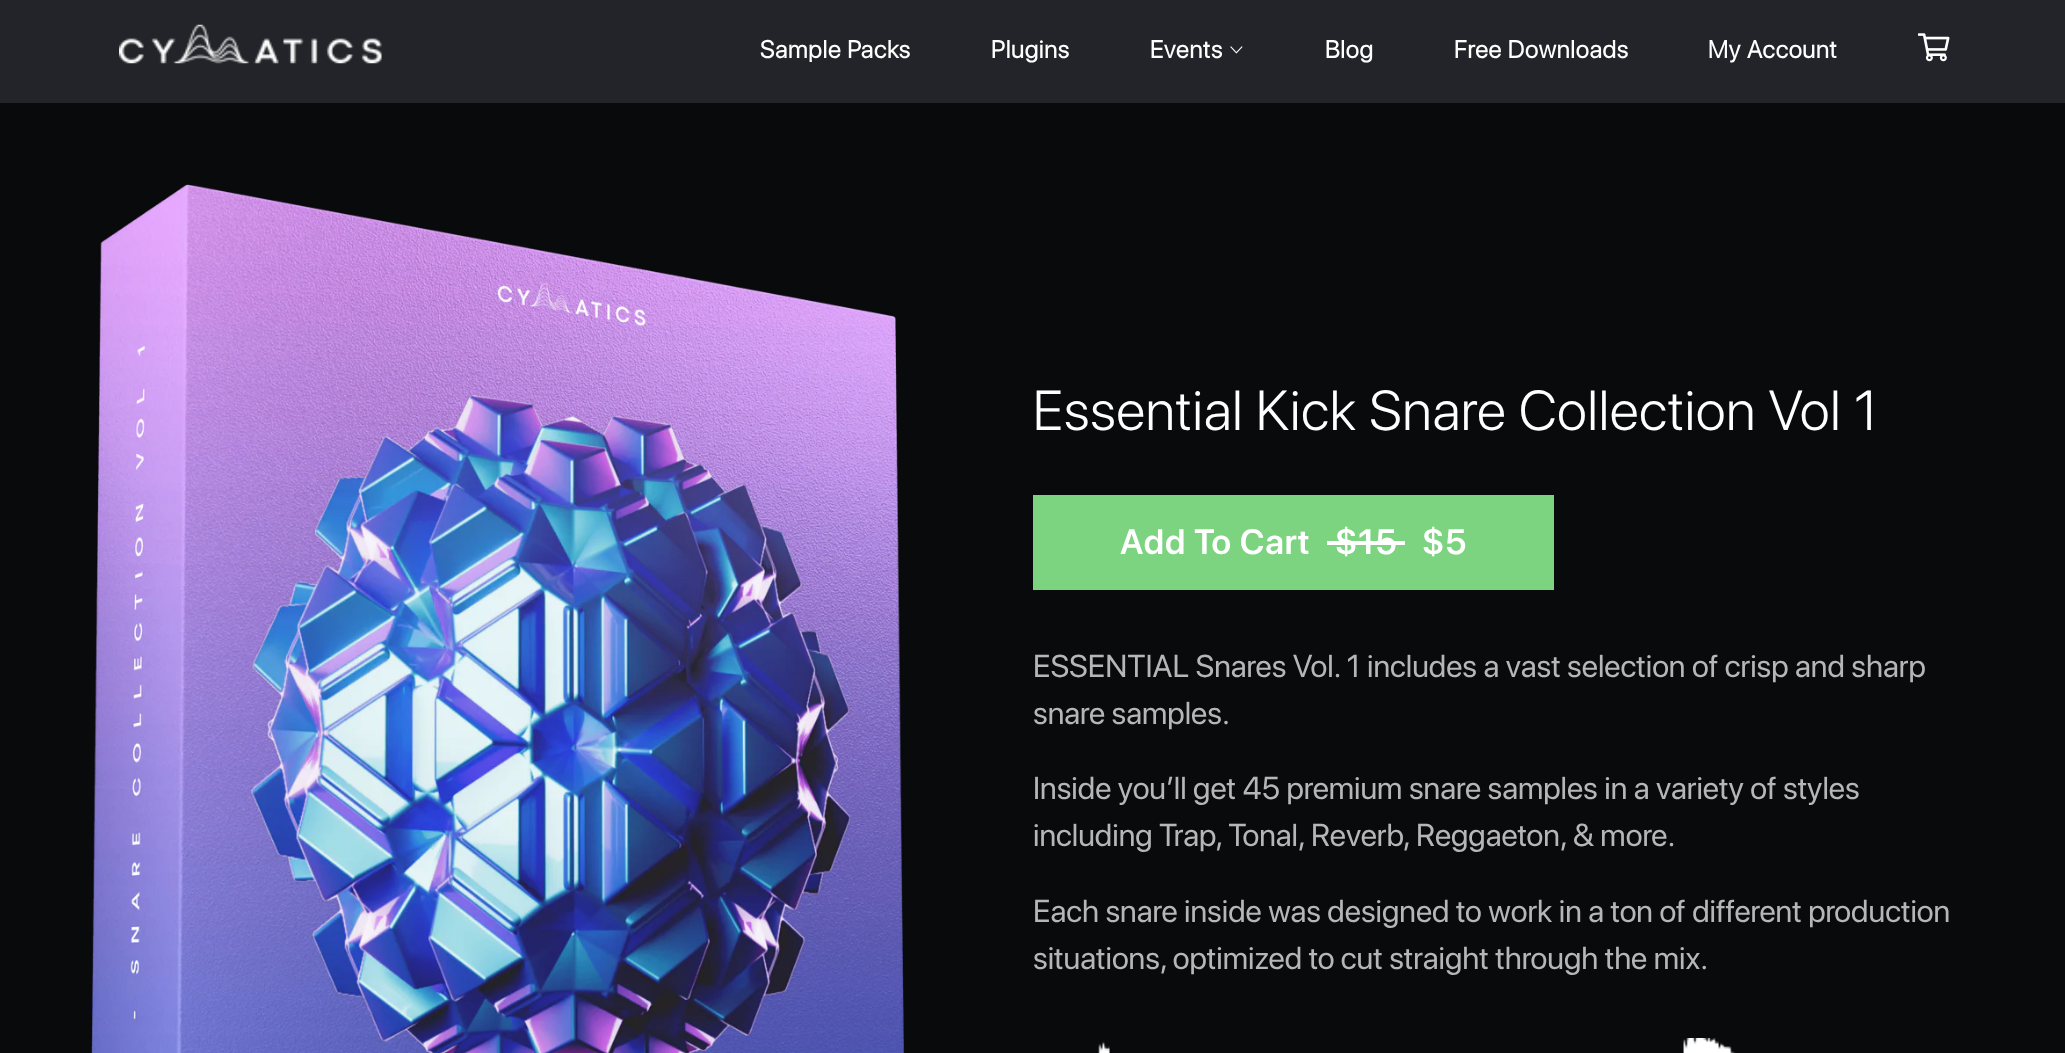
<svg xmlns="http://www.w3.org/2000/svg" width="2065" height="1053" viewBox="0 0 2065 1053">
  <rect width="100%" height="100%" fill="rgb(9,10,12)"/>
  <rect x="0" y="0" width="2065" height="103" fill="rgb(35,36,41)"/>
  <image x="119" y="24" width="263" height="40" href="pic1.png"/>
  <g font-family="SF Pro Display" font-size="24.5" font-weight="bold" letter-spacing="0.9" fill="rgb(255,255,255)">
    <text x="760" y="58">Sample Packs</text>
    <text x="991" y="58">Plugins</text>
    <text x="1150" y="58">Events</text>
  </g>
  <image x="1230" y="46" width="13" height="8" href="pic2.png"/>
  <g font-family="SF Pro Display" font-size="24.5" font-weight="bold" letter-spacing="0.9" fill="rgb(255,255,255)">
    <text x="1325" y="58">Blog</text>
    <text x="1454" y="58">Free Downloads</text>
    <text x="1708" y="58">My Account</text>
  </g>
  <image x="1918" y="33" width="32" height="29" href="pic3.png"/>
  <image x="91" y="184" width="814" height="869" href="pic4.png"/>
  <text x="1033" y="430" font-family="SF Pro Display" font-size="56" font-weight="300" letter-spacing="0.9" fill="rgb(255,255,255)">Essential Kick Snare Collection Vol 1</text>
  <rect x="1033" y="495" width="521" height="95" fill="rgb(124,211,128)"/>
  <g font-family="SF Pro Display" font-size="35" font-weight="600" letter-spacing="0.9" fill="rgb(255,255,255)">
    <text x="1120" y="554">Add To Cart</text>
    <text x="1335" y="554">$15</text>
  </g>
  <rect x="1327" y="541" width="78" height="4" fill="rgb(255,255,255)"/>
  <text x="1422" y="554" font-family="SF Pro Display" font-size="35" font-weight="600" letter-spacing="0.9" fill="rgb(255,255,255)">$5</text>
  <g font-family="SF Pro Display" font-size="31.5" fill="rgb(181,182,182)">
    <text>
      <tspan x="1033" y="677">ESSENTIAL Snares Vol. 1 includes a vast selection of crisp and sharp</tspan>
      <tspan x="1033" y="724">snare samples.</tspan>
    </text>
    <text>
      <tspan x="1033" y="799">Inside you’ll get 45 premium snare samples in a variety of styles</tspan>
      <tspan x="1033" y="846">including Trap, Tonal, Reverb, Reggaeton, &amp; more.</tspan>
    </text>
    <text>
      <tspan x="1033" y="922">Each snare inside was designed to work in a ton of different production</tspan>
      <tspan x="1033" y="969">situations, optimized to cut straight through the mix.</tspan>
    </text>
  </g>
  <image x="1098" y="1041" width="12" height="12" href="pic5.png"/>
  <image x="1683" y="1038" width="52" height="15" href="pic6.png"/>
</svg>
